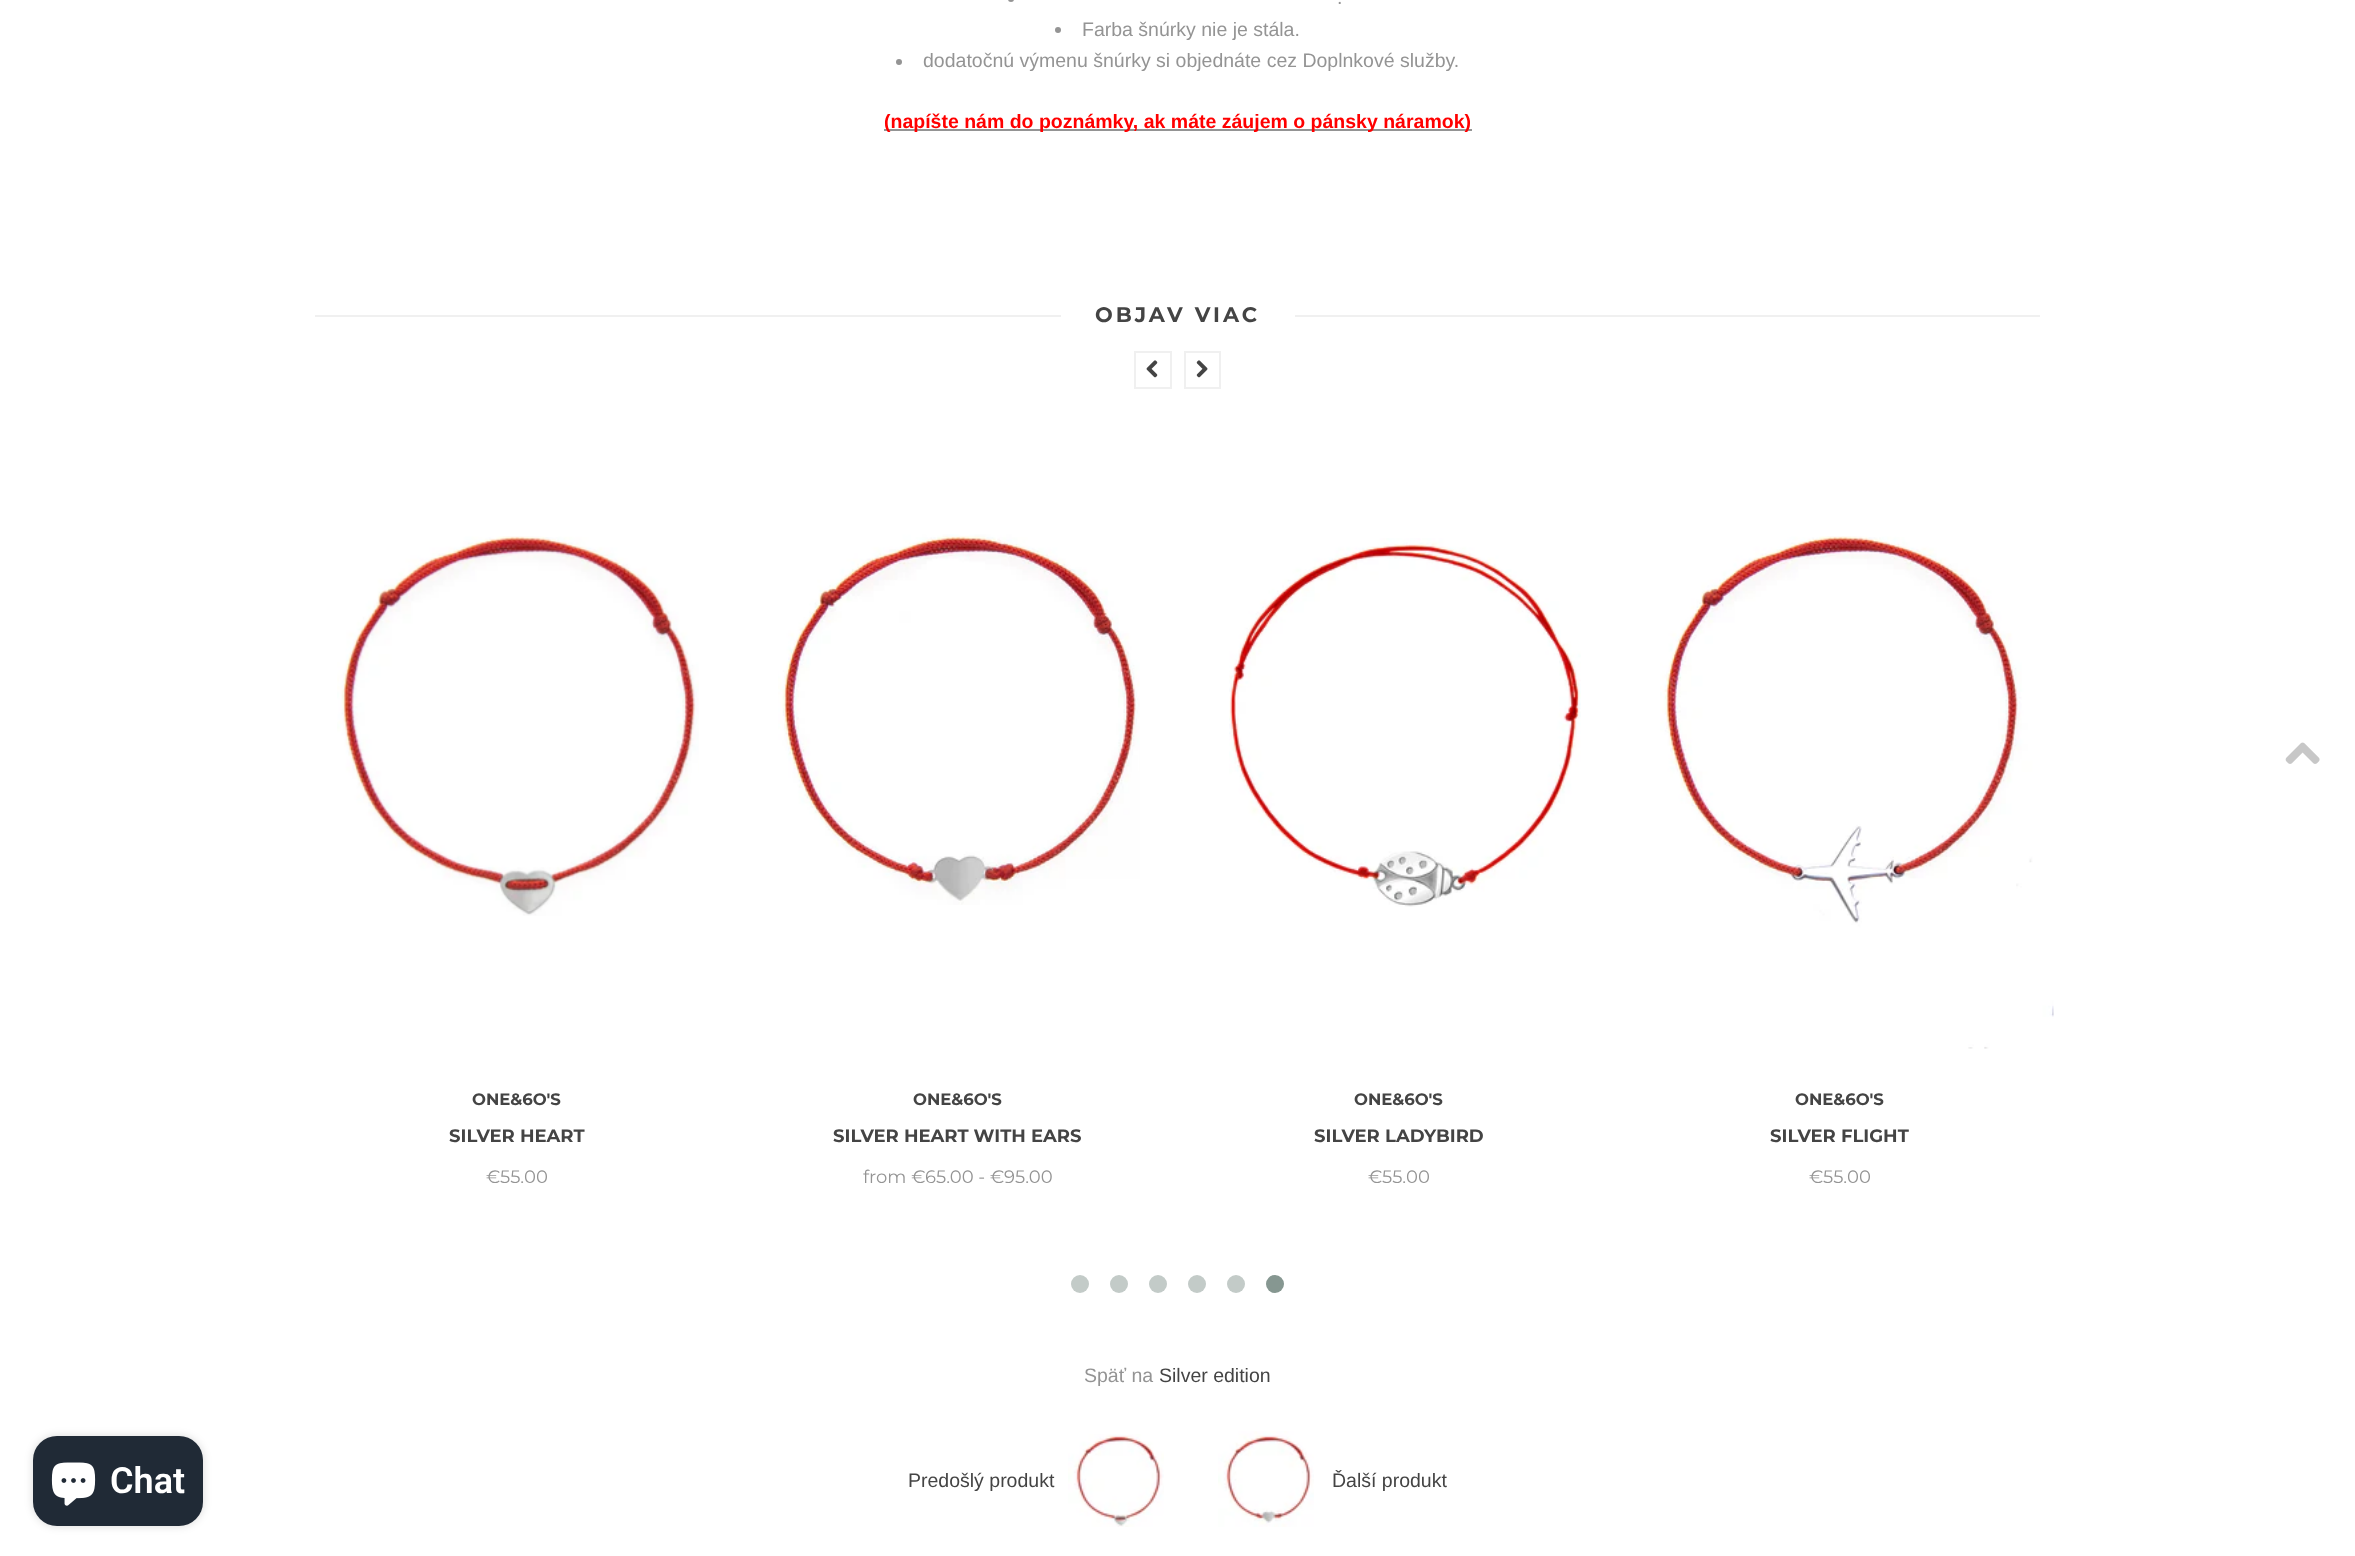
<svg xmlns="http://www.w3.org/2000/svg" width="2355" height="1556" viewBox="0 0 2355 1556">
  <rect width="100%" height="100%" fill="rgb(255,255,255)"/>
  <rect x="1008" y="-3" width="6" height="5" rx="3" fill="rgb(148,148,148)"/>
  <text x="1337" y="4" font-family="Liberation Sans" font-size="19.5" fill="rgb(148,148,148)">.</text>
  <circle cx="1058" cy="30" r="3" fill="rgb(148,148,148)"/>
  <text x="1082" y="36" font-family="Liberation Sans" font-size="19.5" fill="rgb(148,148,148)">Farba šnúrky nie je stála.</text>
  <circle cx="899" cy="62" r="3" fill="rgb(148,148,148)"/>
  <text x="923" y="67" font-family="Liberation Sans" font-size="19.5" fill="rgb(148,148,148)">dodatočnú výmenu šnúrky si objednáte cez Doplnkové služby.</text>
  <rect x="884" y="129" width="588" height="2" fill="rgb(148,148,148)"/>
  <text x="884" y="128" font-family="Liberation Sans" font-size="19.5" font-weight="bold" fill="rgb(255,0,0)">(napíšte nám do poznámky, ak máte záujem o pánsky náramok)</text>
  <rect x="315" y="315" width="1725" height="2" fill="rgb(240,240,240)"/>
  <rect x="1061" y="315" width="234" height="2" fill="rgb(255,255,255)"/>
  <text x="1095" y="322" font-family="Montserrat" font-size="21" font-weight="bold" letter-spacing="3" fill="rgb(68,68,68)">OBJAV VIAC</text>
  <rect x="1135" y="352" width="36" height="36" fill="none" stroke="rgb(240,240,240)" stroke-width="2"/>
  <image x="1146" y="360" width="12" height="18" href="pic1.png"/>
  <rect x="1185" y="352" width="35" height="36" fill="none" stroke="rgb(240,240,240)" stroke-width="2"/>
  <image x="1196" y="360" width="12" height="18" href="pic2.png"/>
  <image x="337" y="536" width="362" height="380" href="pic3.png"/>
  <text x="472" y="1105" font-family="Montserrat" font-size="16.5" font-weight="bold" fill="rgb(68,68,68)">ONE&amp;6O'S</text>
  <text x="449" y="1142" font-family="Montserrat" font-size="18" font-weight="bold" fill="rgb(68,68,68)">SILVER HEART</text>
  <text x="486" y="1183" font-family="Montserrat" font-size="18" fill="rgb(148,148,148)">€55.00</text>
  <image x="778" y="534" width="362" height="371" href="pic4.png"/>
  <text x="913" y="1105" font-family="Montserrat" font-size="16.5" font-weight="bold" fill="rgb(68,68,68)">ONE&amp;6O'S</text>
  <text x="833" y="1142" font-family="Montserrat" font-size="18" font-weight="bold" fill="rgb(68,68,68)">SILVER HEART WITH EARS</text>
  <text x="863" y="1183" font-family="Montserrat" font-size="18" fill="rgb(148,148,148)">from €65.00 - €95.00</text>
  <image x="1229" y="538" width="352" height="369" href="pic5.png"/>
  <text x="1354" y="1105" font-family="Montserrat" font-size="16.5" font-weight="bold" fill="rgb(68,68,68)">ONE&amp;6O'S</text>
  <text x="1314" y="1142" font-family="Montserrat" font-size="18" font-weight="bold" fill="rgb(68,68,68)">SILVER LADYBIRD</text>
  <text x="1368" y="1183" font-family="Montserrat" font-size="18" fill="rgb(148,148,148)">€55.00</text>
  <image x="1660" y="536" width="394" height="513" href="pic6.png"/>
  <text x="1795" y="1105" font-family="Montserrat" font-size="16.5" font-weight="bold" fill="rgb(68,68,68)">ONE&amp;6O'S</text>
  <text x="1770" y="1142" font-family="Montserrat" font-size="18" font-weight="bold" fill="rgb(68,68,68)">SILVER FLIGHT</text>
  <text x="1809" y="1183" font-family="Montserrat" font-size="18" fill="rgb(148,148,148)">€55.00</text>
  <circle cx="1080" cy="1284" r="9" fill="rgb(195,203,200)"/>
  <circle cx="1119" cy="1284" r="9" fill="rgb(195,203,200)"/>
  <circle cx="1158" cy="1284" r="9" fill="rgb(195,203,200)"/>
  <circle cx="1197" cy="1284" r="9" fill="rgb(195,203,200)"/>
  <circle cx="1236" cy="1284" r="9" fill="rgb(195,203,200)"/>
  <circle cx="1275" cy="1284" r="9" fill="rgb(134,151,145)"/>
  <text x="1084" y="1382" font-family="Liberation Sans" font-size="19.5" fill="rgb(148,148,148)">Späť na</text>
  <g font-family="Liberation Sans" font-size="19.5" fill="rgb(68,68,68)">
    <text x="1159" y="1382">Silver edition</text>
    <text x="908" y="1487">Predošlý produkt</text>
  </g>
  <image x="1068" y="1434" width="96" height="93" href="pic7.png"/>
  <image x="1218" y="1431" width="96" height="96" href="pic8.png"/>
  <text x="1332" y="1487" font-family="Liberation Sans" font-size="19.5" fill="rgb(68,68,68)">Ďalší produkt</text>
  <image x="2285" y="742" width="35" height="22" href="pic9.png"/>
  <rect x="33" y="1436" width="170" height="90" rx="24" fill="rgba(0,0,0,0.15)" filter="blur(4px)"/>
  <rect x="33" y="1436" width="170" height="90" rx="24" fill="rgb(32,42,54)"/>
  <image x="51" y="1462" width="45" height="44" href="pic10.png"/>
  <text x="110" y="1493" font-family="Roboto" font-size="36" font-weight="600" fill="rgb(255,255,255)">Chat</text>
</svg>
